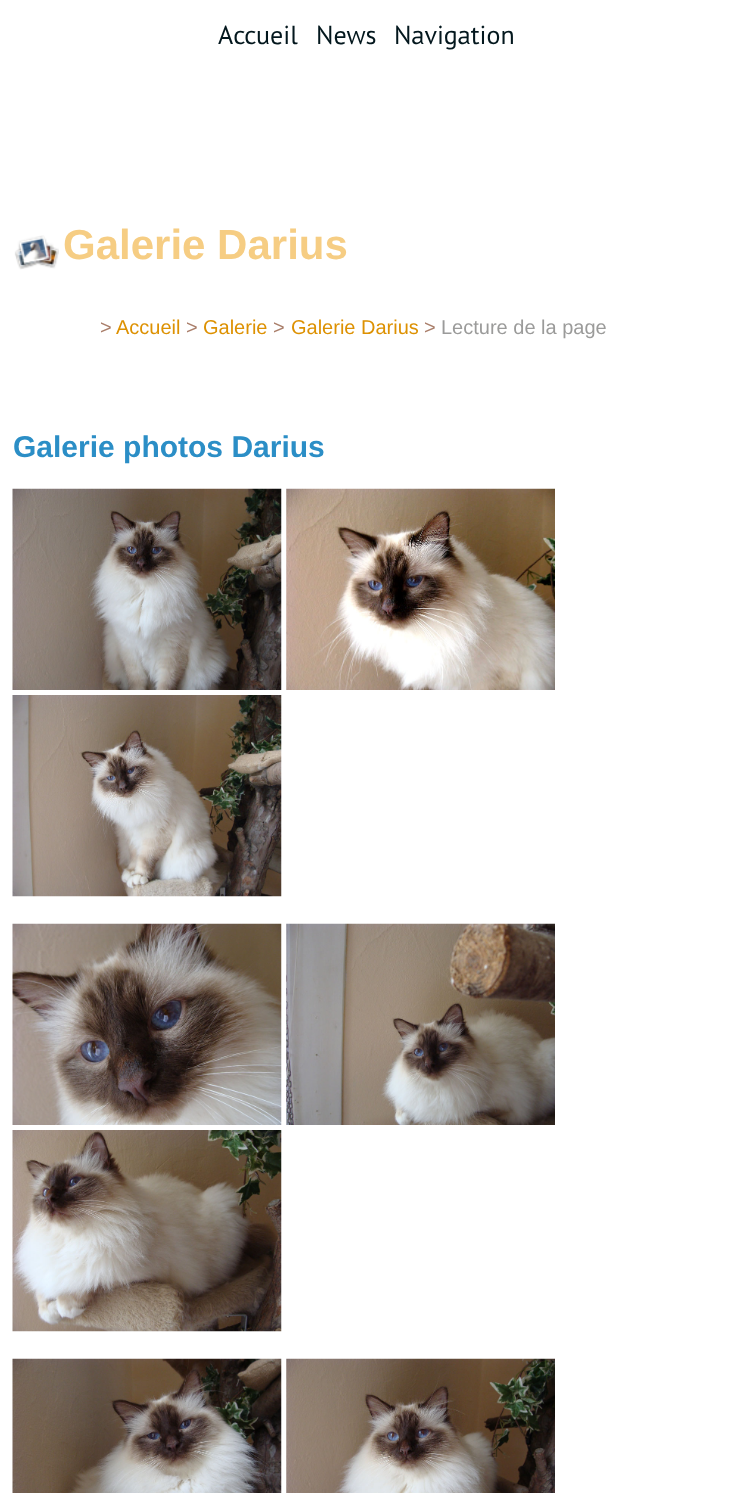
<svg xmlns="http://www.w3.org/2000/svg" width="745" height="1493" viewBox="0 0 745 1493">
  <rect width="100%" height="100%" fill="rgb(255,255,255)"/>
  <g font-family="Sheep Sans" font-size="26" fill="rgb(3,23,29)">
    <text x="218" y="44">Accueil</text>
    <text x="316" y="44">News</text>
    <text x="394" y="44">Navigation</text>
  </g>
  <image x="14" y="235" width="45" height="35" href="pic1.png"/>
  <text x="63" y="259" font-family="Liberation Sans" font-size="42" font-weight="bold" fill="rgb(246,205,131)">Galerie Darius</text>
  <text x="100" y="334" font-family="Liberation Sans" font-size="20" fill="rgb(170,127,107)">&gt;</text>
  <text x="116" y="334" font-family="Liberation Sans" font-size="20" fill="rgb(221,145,2)">Accueil</text>
  <text x="186" y="334" font-family="Liberation Sans" font-size="20" fill="rgb(170,127,107)">&gt;</text>
  <text x="203" y="334" font-family="Liberation Sans" font-size="20" fill="rgb(221,145,2)">Galerie</text>
  <text x="273" y="334" font-family="Liberation Sans" font-size="20" fill="rgb(170,127,107)">&gt;</text>
  <text x="291" y="334" font-family="Liberation Sans" font-size="20" fill="rgb(221,145,2)">Galerie Darius</text>
  <text x="424" y="334" font-family="Liberation Sans" font-size="20" fill="rgb(170,127,107)">&gt;</text>
  <text x="441" y="334" font-family="Liberation Sans" font-size="20" fill="rgb(155,155,154)">Lecture de la page</text>
  <text x="13" y="457" font-family="Liberation Sans" font-size="30" font-weight="bold" fill="rgb(43,142,198)">Galerie photos Darius</text>
  <image x="12" y="488" width="270" height="202" href="pic2.png"/>
  <image x="286" y="488" width="269" height="202" href="pic3.png"/>
  <image x="12" y="695" width="270" height="202" href="pic4.png"/>
  <image x="12" y="923" width="270" height="202" href="pic5.png"/>
  <image x="286" y="923" width="269" height="202" href="pic6.png"/>
  <image x="12" y="1130" width="270" height="202" href="pic7.png"/>
  <image x="12" y="1358" width="270" height="135" href="pic8.png"/>
  <image x="286" y="1358" width="269" height="135" href="pic9.png"/>
</svg>
